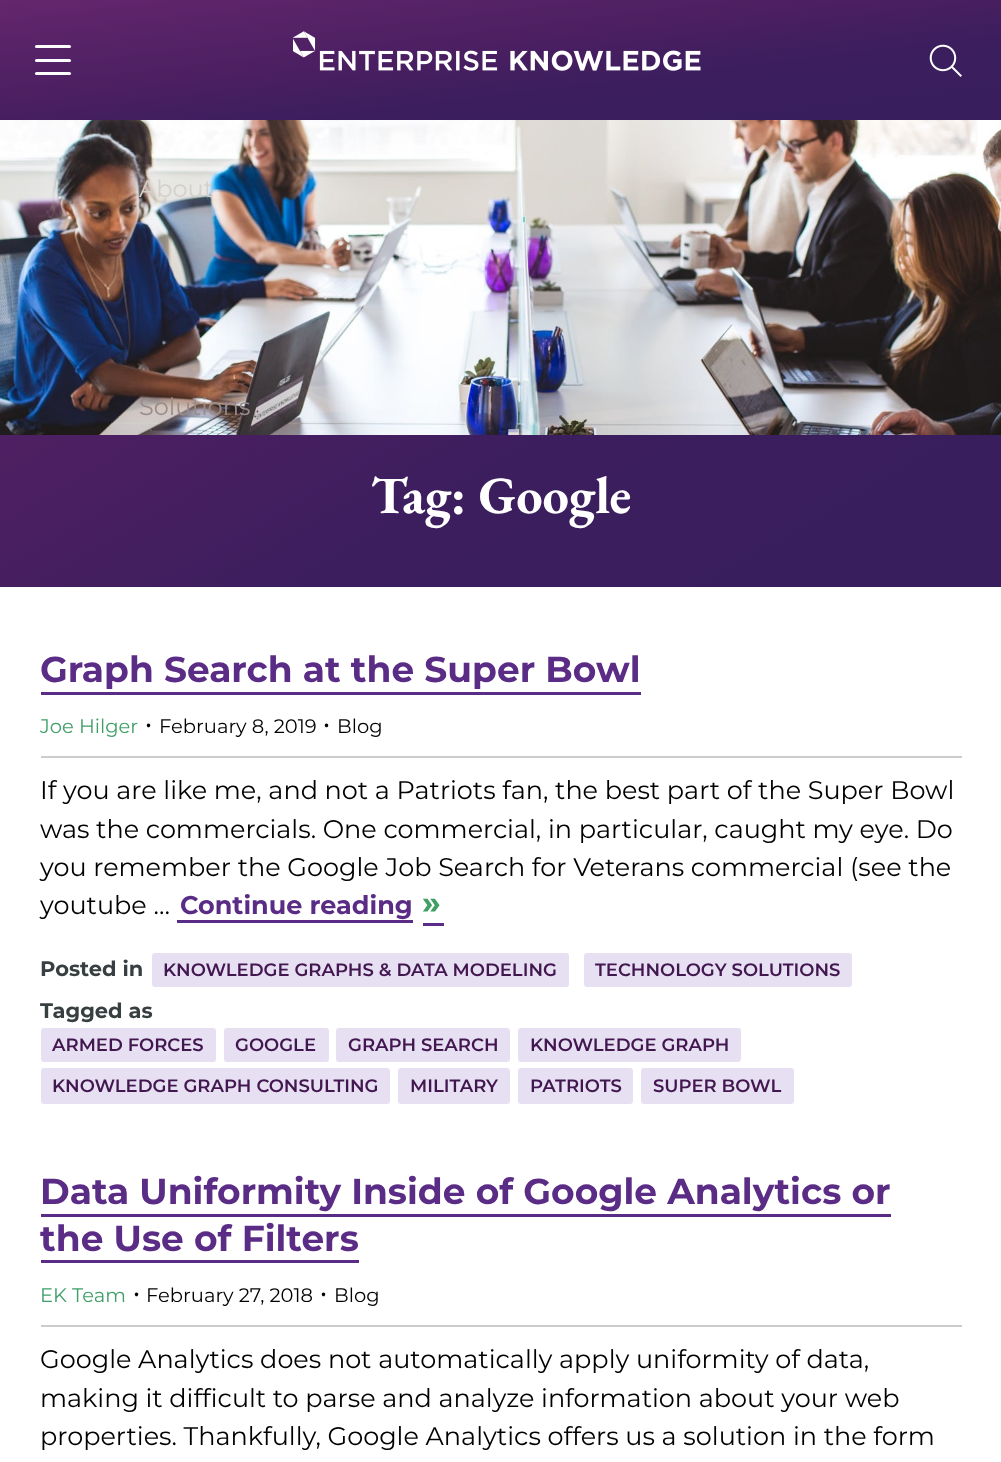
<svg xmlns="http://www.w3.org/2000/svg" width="1001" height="1462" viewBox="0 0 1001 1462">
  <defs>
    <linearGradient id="g1" gradientUnits="userSpaceOnUse" x1="487" y1="-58" x2="515" y2="178"><stop offset="0" stop-color="rgb(100,38,110)"/><stop offset="0.45" stop-color="rgb(74,31,97)"/><stop offset="0.65" stop-color="rgb(60,30,94)"/><stop offset="0.86" stop-color="rgb(57,30,93)"/></linearGradient>
    <linearGradient id="g2" gradientUnits="userSpaceOnUse" x1="245" y1="-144" x2="757" y2="730"><stop offset="0" stop-color="rgb(100,38,110)"/><stop offset="0.45" stop-color="rgb(74,31,97)"/><stop offset="0.65" stop-color="rgb(60,30,94)"/><stop offset="0.86" stop-color="rgb(57,30,93)"/></linearGradient>
  </defs>
  <rect width="100%" height="100%" fill="rgb(255,255,255)"/>
  <rect x="0" y="0" width="1001" height="120" fill="url(#g1)"/>
  <rect x="35" y="45" width="36" height="3" rx="1.5" fill="rgb(255,255,255)"/>
  <rect x="35" y="59" width="36" height="3" rx="1.5" fill="rgb(255,255,255)"/>
  <rect x="35" y="72" width="36" height="3" rx="1.5" fill="rgb(255,255,255)"/>
  <image x="293" y="31" width="408" height="40" href="pic1.png"/>
  <image x="929" y="44" width="33" height="33" href="pic2.png"/>
  <image x="0" y="120" width="1001" height="315" href="pic3.png"/>
  <text x="139" y="197" font-family="Montserrat" font-size="24" fill="rgb(211,208,204)">About</text>
  <text x="139" y="415" font-family="Montserrat" font-size="24" fill="rgb(153,140,138)">Solutions</text>
  <rect x="0" y="435" width="1001" height="152" fill="url(#g2)"/>
  <text x="371" y="513" font-family="EB Garamond" font-size="52.5" font-weight="bold" fill="rgb(255,255,255)">Tag: Google</text>
  <text x="40" y="682" font-family="Montserrat" font-size="36" font-weight="bold" fill="rgb(90,44,133)">Graph Search at the Super Bowl</text>
  <rect x="41" y="692" width="600" height="3" fill="rgb(90,44,133)"/>
  <rect x="41" y="756" width="921" height="2" fill="rgb(204,204,204)"/>
  <text x="40" y="733" font-family="Montserrat" font-size="19.5" fill="rgb(64,159,103)">Joe Hilger</text>
  <text x="145" y="727" font-family="Montserrat" font-size="33" fill="rgb(0,0,0)">.</text>
  <text x="159" y="733" font-family="Montserrat" font-size="19.5" fill="rgb(0,0,0)">February 8, 2019</text>
  <text x="323" y="727" font-family="Montserrat" font-size="33" fill="rgb(0,0,0)">.</text>
  <text x="337" y="733" font-family="Montserrat" font-size="19.5" fill="rgb(0,0,0)">Blog</text>
  <g font-family="Montserrat" font-size="25.5" fill="rgb(0,0,0)">
    <text>
      <tspan x="40" y="799">If you are like me, and not a Patriots fan, the best part of the Super Bowl</tspan>
      <tspan x="40" y="838">was the commercials. One commercial, in particular, caught my eye. Do</tspan>
      <tspan x="40" y="876">you remember the Google Job Search for Veterans commercial (see the</tspan>
      <tspan x="40" y="914">youtube …</tspan>
    </text>
  </g>
  <text x="180" y="914" font-family="Montserrat" font-size="25.5" font-weight="bold" fill="rgb(90,44,133)">Continue reading</text>
  <rect x="177" y="920" width="236" height="3" fill="rgb(90,44,133)"/>
  <text x="422" y="914" font-family="Montserrat" font-size="33" font-weight="bold" fill="rgb(64,159,103)">»</text>
  <rect x="423" y="923" width="21" height="3" fill="rgb(90,44,133)"/>
  <text x="40" y="976" font-family="Montserrat" font-size="21" font-weight="bold" fill="rgb(55,63,65)">Posted in</text>
  <rect x="152" y="953" width="417" height="34" rx="3" fill="rgb(231,224,243)"/>
  <text x="163" y="976" font-family="Montserrat" font-size="18" font-weight="600" fill="rgb(66,22,79)">KNOWLEDGE GRAPHS &amp; DATA MODELING</text>
  <rect x="584" y="953" width="268" height="34" rx="3" fill="rgb(231,224,243)"/>
  <text x="595" y="976" font-family="Montserrat" font-size="18" font-weight="600" fill="rgb(66,22,79)">TECHNOLOGY SOLUTIONS</text>
  <text x="40" y="1018" font-family="Montserrat" font-size="21" font-weight="bold" fill="rgb(55,63,65)">Tagged as</text>
  <rect x="41" y="1028" width="175" height="34" rx="3" fill="rgb(231,224,243)"/>
  <text x="52" y="1051" font-family="Montserrat" font-size="18" font-weight="600" fill="rgb(66,22,79)">ARMED FORCES</text>
  <rect x="224" y="1028" width="105" height="34" rx="3" fill="rgb(231,224,243)"/>
  <text x="235" y="1051" font-family="Montserrat" font-size="18" font-weight="600" fill="rgb(66,22,79)">GOOGLE</text>
  <rect x="336" y="1028" width="174" height="34" rx="3" fill="rgb(231,224,243)"/>
  <text x="348" y="1051" font-family="Montserrat" font-size="18" font-weight="600" fill="rgb(66,22,79)">GRAPH SEARCH</text>
  <rect x="518" y="1028" width="223" height="34" rx="3" fill="rgb(231,224,243)"/>
  <text x="530" y="1051" font-family="Montserrat" font-size="18" font-weight="600" fill="rgb(66,22,79)">KNOWLEDGE GRAPH</text>
  <rect x="41" y="1068" width="349" height="36" rx="3" fill="rgb(231,224,243)"/>
  <text x="52" y="1092" font-family="Montserrat" font-size="18" font-weight="600" fill="rgb(66,22,79)">KNOWLEDGE GRAPH CONSULTING</text>
  <rect x="398" y="1068" width="112" height="36" rx="3" fill="rgb(231,224,243)"/>
  <text x="410" y="1092" font-family="Montserrat" font-size="18" font-weight="600" fill="rgb(66,22,79)">MILITARY</text>
  <rect x="518" y="1068" width="115" height="36" rx="3" fill="rgb(231,224,243)"/>
  <text x="530" y="1092" font-family="Montserrat" font-size="18" font-weight="600" fill="rgb(66,22,79)">PATRIOTS</text>
  <rect x="641" y="1068" width="153" height="36" rx="3" fill="rgb(231,224,243)"/>
  <text x="653" y="1092" font-family="Montserrat" font-size="18" font-weight="600" fill="rgb(66,22,79)">SUPER BOWL</text>
  <g font-family="Montserrat" font-size="36" font-weight="bold" fill="rgb(90,44,133)">
    <text>
      <tspan x="40" y="1204">Data Uniformity Inside of Google Analytics or</tspan>
      <tspan x="40" y="1251">the Use of Filters</tspan>
    </text>
  </g>
  <rect x="41" y="1214" width="850" height="3" fill="rgb(90,44,133)"/>
  <rect x="41" y="1260" width="318" height="3" fill="rgb(90,44,133)"/>
  <rect x="41" y="1325" width="921" height="2" fill="rgb(204,204,204)"/>
  <text x="40" y="1302" font-family="Montserrat" font-size="19.5" fill="rgb(64,159,103)">EK Team</text>
  <text x="133" y="1296" font-family="Montserrat" font-size="33" fill="rgb(0,0,0)">.</text>
  <text x="146" y="1302" font-family="Montserrat" font-size="19.5" fill="rgb(0,0,0)">February 27, 2018</text>
  <text x="320" y="1296" font-family="Montserrat" font-size="33" fill="rgb(0,0,0)">.</text>
  <text x="334" y="1302" font-family="Montserrat" font-size="19.5" fill="rgb(0,0,0)">Blog</text>
  <g font-family="Montserrat" font-size="25.5" fill="rgb(0,0,0)">
    <text>
      <tspan x="40" y="1368">Google Analytics does not automatically apply uniformity of data,</tspan>
      <tspan x="40" y="1407">making it difficult to parse and analyze information about your web</tspan>
      <tspan x="40" y="1445">properties. Thankfully, Google Analytics offers us a solution in the form</tspan>
    </text>
  </g>
</svg>
